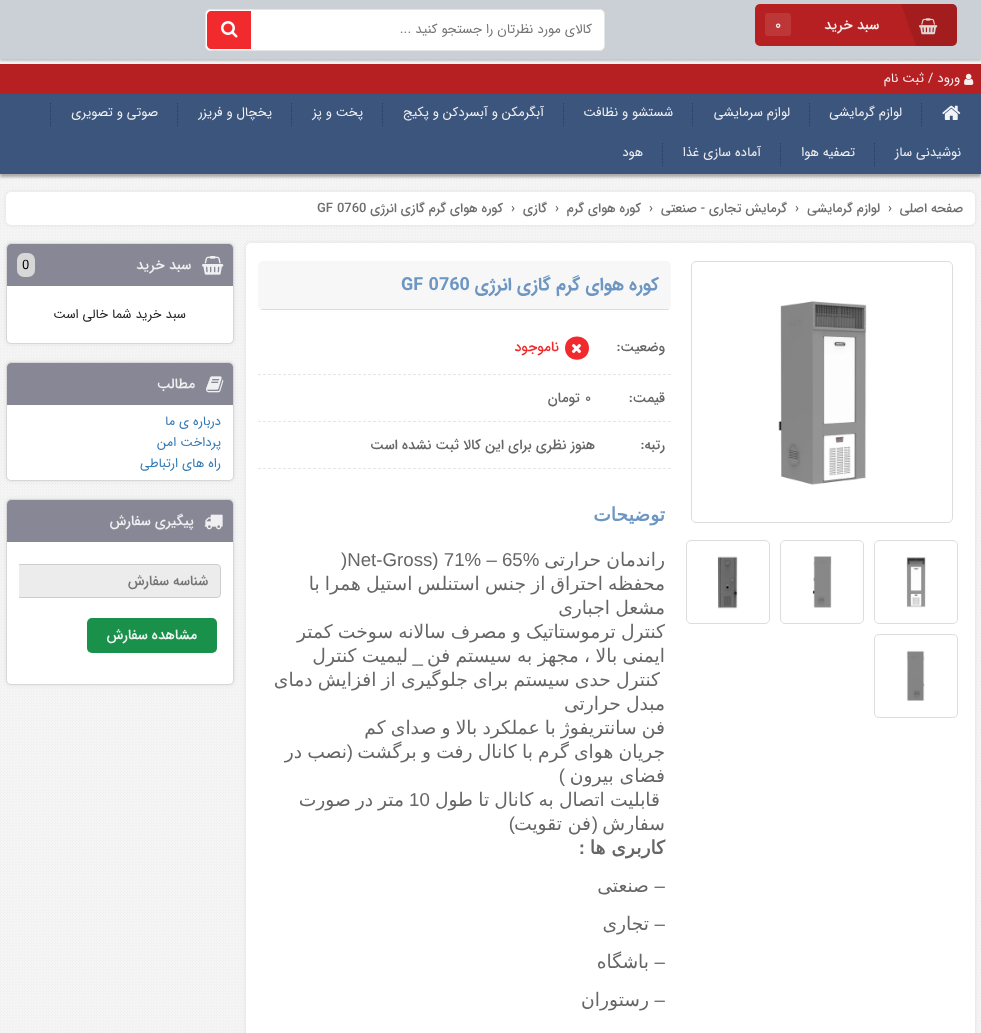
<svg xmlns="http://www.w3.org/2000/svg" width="981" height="1033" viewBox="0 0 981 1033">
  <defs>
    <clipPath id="clip1"><rect x="19" y="548" width="202" height="130"/></clipPath>
  </defs>
  <rect width="100%" height="100%" fill="rgb(245,245,245)"/>
  <image x="0" y="60" width="980" height="973" href="pic1.png"/>
  <rect x="0" y="64" width="981" height="30" fill="rgb(182,32,34)"/>
  <rect x="0" y="2" width="981" height="59" fill="rgba(0,0,0,0.2)" filter="blur(1px)"/>
  <rect x="0" y="0" width="981" height="59" fill="rgb(202,208,213)"/>
  <rect x="755" y="4" width="202" height="42" rx="5" fill="rgb(182,32,34)"/>
  <image x="919" y="18" width="19" height="17" href="pic2.png"/>
  <path d="M916 46L901 4H952C955 4 957 6 957 9V41C957 44 955 46 952 46Z" fill="rgba(0,0,0,0.1)"/>
  <text x="879" y="29" font-family="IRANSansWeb" font-size="14" font-weight="500" direction="rtl" fill="rgb(250,239,240)">سبد خرید</text>
  <rect x="765" y="13" width="26" height="23" rx="3" fill="rgb(189,54,56)"/>
  <text x="775" y="29" font-family="IRANSansWeb" font-size="14" font-weight="500" fill="rgb(250,239,240)">۰</text>
  <rect x="205.5" y="9.5" width="399" height="41" rx="4.5" fill="rgb(255,255,255)" stroke="rgb(229,229,229)"/>
  <text x="592" y="33" font-family="IRANSansWeb" font-size="13.3" direction="rtl" fill="rgb(117,117,117)">کالای مورد نظرتان را جستجو کنید ...</text>
  <path d="M211 11H251V49H211C209 49 207 47 207 45V15C207 13 209 11 211 11Z" fill="rgb(240,42,45)"/>
  <image x="221" y="21" width="17" height="17" href="pic3.png"/>
  <image x="964" y="73" width="10" height="12" href="pic4.png"/>
  <text x="960" y="82" font-family="IRANSansWeb" font-size="13" direction="rtl" fill="rgb(250,239,240)">ورود / ثبت نام</text>
  <rect x="0" y="97" width="981" height="80" fill="rgb(167,167,167)" filter="blur(1.5px)"/>
  <rect x="0" y="94" width="981" height="80" fill="rgb(60,85,125)"/>
  <image x="942" y="105" width="19" height="15" href="pic5.png"/>
  <path d="M921.5 103V126" fill="none" stroke="rgb(42,60,88)" stroke-dasharray="1 1"/>
  <text x="902" y="116" font-family="IRANSansWeb" font-size="13" direction="rtl" fill="rgb(240,239,241)">لوازم گرمایشی</text>
  <path d="M809.5 103V126" fill="none" stroke="rgb(42,60,88)" stroke-dasharray="1 1"/>
  <text x="790" y="116" font-family="IRANSansWeb" font-size="13" direction="rtl" fill="rgb(240,239,241)">لوازم سرمایشی</text>
  <path d="M692.5 103V126" fill="none" stroke="rgb(42,60,88)" stroke-dasharray="1 1"/>
  <text x="673" y="116" font-family="IRANSansWeb" font-size="13" direction="rtl" fill="rgb(240,239,241)">شستشو و نظافت</text>
  <path d="M563.5 103V126" fill="none" stroke="rgb(42,60,88)" stroke-dasharray="1 1"/>
  <text x="544" y="116" font-family="IRANSansWeb" font-size="13" direction="rtl" fill="rgb(240,239,241)">آبگرمکن و آبسردکن و پکیج</text>
  <path d="M382.5 103V126" fill="none" stroke="rgb(42,60,88)" stroke-dasharray="1 1"/>
  <text x="363" y="116" font-family="IRANSansWeb" font-size="13" direction="rtl" fill="rgb(240,239,241)">پخت و پز</text>
  <path d="M291.5 103V126" fill="none" stroke="rgb(42,60,88)" stroke-dasharray="1 1"/>
  <text x="272" y="116" font-family="IRANSansWeb" font-size="13" direction="rtl" fill="rgb(240,239,241)">یخچال و فریزر</text>
  <path d="M177.5 103V126" fill="none" stroke="rgb(42,60,88)" stroke-dasharray="1 1"/>
  <text x="158" y="116" font-family="IRANSansWeb" font-size="13" direction="rtl" fill="rgb(240,239,241)">صوتی و تصویری</text>
  <path d="M50.5 103V126" fill="none" stroke="rgb(42,60,88)" stroke-dasharray="1 1"/>
  <text x="961" y="156" font-family="IRANSansWeb" font-size="13" direction="rtl" fill="rgb(240,239,241)">نوشیدنی ساز</text>
  <path d="M874.5 143V166" fill="none" stroke="rgb(42,60,88)" stroke-dasharray="1 1"/>
  <text x="855" y="156" font-family="IRANSansWeb" font-size="13" direction="rtl" fill="rgb(240,239,241)">تصفیه هوا</text>
  <path d="M780.5 143V166" fill="none" stroke="rgb(42,60,88)" stroke-dasharray="1 1"/>
  <text x="761" y="156" font-family="IRANSansWeb" font-size="13" direction="rtl" fill="rgb(240,239,241)">آماده سازی غذا</text>
  <path d="M662.5 143V166" fill="none" stroke="rgb(42,60,88)" stroke-dasharray="1 1"/>
  <text x="643" y="156" font-family="IRANSansWeb" font-size="13" direction="rtl" fill="rgb(240,239,241)">هود</text>
  <rect x="5" y="191" width="971" height="35" rx="6" fill="rgba(0,0,0,0.05)" filter="blur(1.5px)"/>
  <rect x="6" y="192" width="969" height="33" rx="5" fill="rgb(255,255,255)"/>
  <text x="963" y="212" font-family="IRANSansWeb" font-size="13" font-weight="500" direction="rtl" fill="rgb(110,110,110)">صفحه اصلی</text>
  <text x="888" y="212" font-family="IRANSansWeb" font-size="13" font-weight="500" fill="rgb(110,110,110)">›</text>
  <text x="880" y="212" font-family="IRANSansWeb" font-size="13" font-weight="500" direction="rtl" fill="rgb(110,110,110)">لوازم گرمایشی</text>
  <text x="795" y="212" font-family="IRANSansWeb" font-size="13" font-weight="500" fill="rgb(110,110,110)">›</text>
  <text x="787" y="212" font-family="IRANSansWeb" font-size="13" font-weight="500" direction="rtl" fill="rgb(110,110,110)">گرمایش تجاری - صنعتی</text>
  <text x="649" y="212" font-family="IRANSansWeb" font-size="13" font-weight="500" fill="rgb(110,110,110)">›</text>
  <text x="641" y="212" font-family="IRANSansWeb" font-size="13" font-weight="500" direction="rtl" fill="rgb(110,110,110)">کوره هوای گرم</text>
  <text x="555" y="212" font-family="IRANSansWeb" font-size="13" font-weight="500" fill="rgb(110,110,110)">›</text>
  <text x="547" y="212" font-family="IRANSansWeb" font-size="13" font-weight="500" direction="rtl" fill="rgb(110,110,110)">گازی</text>
  <text x="511" y="212" font-family="IRANSansWeb" font-size="13" font-weight="500" fill="rgb(110,110,110)">›</text>
  <text x="503" y="212" font-family="IRANSansWeb" font-size="13" font-weight="500" direction="rtl" fill="rgb(110,110,110)">کوره هوای گرم گازی انرژی</text>
  <text x="317" y="212" font-family="IRANSansWeb" font-size="13" font-weight="500" fill="rgb(110,110,110)">GF 0760</text>
  <rect x="245" y="242" width="731" height="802" rx="6" fill="rgba(0,0,0,0.05)" filter="blur(1.5px)"/>
  <rect x="246" y="243" width="729" height="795" rx="5" fill="rgb(255,255,255)"/>
  <rect x="691.5" y="261.5" width="261" height="261" rx="4.5" fill="none" stroke="rgb(221,221,221)"/>
  <image x="778" y="301" width="89" height="184" href="pic6.png"/>
  <rect x="874.5" y="540.5" width="83" height="83" rx="4.5" fill="none" stroke="rgb(221,221,221)"/>
  <image x="906" y="557" width="20" height="51" href="pic7.png"/>
  <rect x="780.5" y="540.5" width="83" height="83" rx="4.5" fill="none" stroke="rgb(221,221,221)"/>
  <image x="812" y="556" width="20" height="52" href="pic8.png"/>
  <rect x="686.5" y="540.5" width="83" height="83" rx="4.5" fill="none" stroke="rgb(221,221,221)"/>
  <image x="717" y="556" width="21" height="53" href="pic9.png"/>
  <rect x="874.5" y="634.5" width="83" height="83" rx="4.5" fill="none" stroke="rgb(221,221,221)"/>
  <image x="906" y="650" width="19" height="51" href="pic10.png"/>
  <rect x="258" y="261" width="413" height="49" rx="5" fill="rgb(247,247,247)"/>
  <rect x="261" y="309" width="408" height="1" fill="rgba(0,0,0,0.1)"/>
  <text x="659" y="290" font-family="IRANSansWeb" font-size="18" font-weight="bold" direction="rtl" fill="rgb(109,150,194)">کوره هوای گرم گازی انرژی</text>
  <text x="401" y="290" font-family="IRANSansWeb" font-size="18" font-weight="bold" fill="rgb(109,150,194)">GF 0760</text>
  <path d="M258 374.5H671" fill="none" stroke="rgb(230,230,230)" stroke-dasharray="3 2"/>
  <text x="665" y="351" font-family="IRANSansWeb" font-size="14" font-weight="500" direction="rtl" fill="rgb(102,102,102)">وضعیت:</text>
  <path d="M589 348C589 332.5 565 332.5 565 348C565 363.5 589 363.5 589 348Z" fill="rgb(240,42,45)"/>
  <image x="571" y="343" width="11" height="11" href="pic11.png"/>
  <text x="559" y="351" font-family="IRANSansWeb" font-size="14" font-weight="500" direction="rtl" fill="rgb(240,42,45)">ناموجود</text>
  <path d="M258 421.5H671" fill="none" stroke="rgb(230,230,230)" stroke-dasharray="3 2"/>
  <text x="665" y="402" font-family="IRANSansWeb" font-size="14" font-weight="500" direction="rtl" fill="rgb(102,102,102)">قیمت:</text>
  <text x="585" y="402" font-family="IRANSansWeb" font-size="14" font-weight="500" fill="rgb(102,102,102)">۰</text>
  <text x="580" y="402" font-family="IRANSansWeb" font-size="14" font-weight="500" direction="rtl" fill="rgb(102,102,102)">تومان</text>
  <path d="M258 468.5H671" fill="none" stroke="rgb(230,230,230)" stroke-dasharray="3 2"/>
  <g font-family="IRANSansWeb" font-size="14" font-weight="500" direction="rtl" fill="rgb(102,102,102)">
    <text x="665" y="449">رتبه:</text>
    <text x="595" y="449">هنوز نظری برای این کالا ثبت نشده است</text>
  </g>
  <text x="665" y="521" font-family="DejaVu Sans" font-size="18.7" font-weight="bold" direction="rtl" fill="rgb(109,150,194)">توضیحات</text>
  <text x="665" y="566" word-spacing="-0.75" font-family="DejaVu Sans" font-size="18.7" direction="rtl" fill="rgb(102,102,102)">راندمان حرارتی</text>
  <text x="341" y="566" font-family="Liberation Sans" font-size="18.7" fill="rgb(102,102,102)">)Net-Gross) 71% – 65%</text>
  <g font-family="DejaVu Sans" font-size="18.7" direction="rtl" fill="rgb(102,102,102)">
    <text>
      <tspan x="665" y="590" word-spacing="-0.75">محفظه احتراق از جنس استنلس استیل همرا با</tspan>
      <tspan x="665" y="614" word-spacing="-0.75">مشعل اجباری</tspan>
      <tspan x="665" y="638" word-spacing="-0.75">کنترل ترموستاتیک و مصرف سالانه سوخت کمتر</tspan>
      <tspan x="665" y="662" word-spacing="-0.5">ایمنی بالا ، مجهز به سیستم فن</tspan>
    </text>
  </g>
  <text x="423" y="662" font-family="Liberation Sans" font-size="18.7" direction="rtl" fill="rgb(102,102,102)">_</text>
  <g font-family="DejaVu Sans" font-size="18.7" direction="rtl" fill="rgb(102,102,102)">
    <text x="408" y="662" word-spacing="-0.5">لیمیت کنترل</text>
    <text x="660" y="686" word-spacing="-0.75">کنترل حدی سیستم برای جلوگیری از افزایش دمای</text>
    <text>
      <tspan x="665" y="710" word-spacing="-0.75">مبدل حرارتی</tspan>
      <tspan x="665" y="734" word-spacing="-0.75">فن سانتریفوژ با عملکرد بالا و صدای کم</tspan>
      <tspan x="665" y="758" word-spacing="-0.75">جریان هوای گرم با کانال رفت و برگشت</tspan>
    </text>
  </g>
  <text x="353" y="758" font-family="Liberation Sans" font-size="18.7" direction="rtl" fill="rgb(102,102,102)">(</text>
  <g font-family="DejaVu Sans" font-size="18.7" direction="rtl" fill="rgb(102,102,102)">
    <text x="347" y="758" word-spacing="-0.75">نصب در</text>
    <text x="665" y="782">فضای بیرون</text>
  </g>
  <text x="565" y="782" font-family="Liberation Sans" font-size="18.7" direction="rtl" fill="rgb(102,102,102)">)</text>
  <text x="660" y="806" word-spacing="-0.75" font-family="DejaVu Sans" font-size="18.7" direction="rtl" fill="rgb(102,102,102)">قابلیت اتصال به کانال تا طول</text>
  <text x="409" y="806" font-family="Liberation Sans" font-size="18.7" fill="rgb(102,102,102)">10</text>
  <g font-family="DejaVu Sans" font-size="18.7" direction="rtl" fill="rgb(102,102,102)">
    <text x="404" y="806" word-spacing="-1">متر در صورت</text>
    <text x="665" y="830">سفارش</text>
  </g>
  <text x="598" y="830" font-family="Liberation Sans" font-size="18.7" direction="rtl" fill="rgb(102,102,102)">(</text>
  <text x="591" y="830" font-family="DejaVu Sans" font-size="18.7" direction="rtl" fill="rgb(102,102,102)">فن تقویت</text>
  <text x="515" y="830" font-family="Liberation Sans" font-size="18.7" direction="rtl" fill="rgb(102,102,102)">)</text>
  <text x="665" y="854" font-family="DejaVu Sans" font-size="18.7" font-weight="bold" direction="rtl" fill="rgb(102,102,102)">کاربری ها</text>
  <text x="585" y="854" font-family="Liberation Sans" font-size="18.7" font-weight="bold" direction="rtl" fill="rgb(102,102,102)">:</text>
  <text x="665" y="892" font-family="Liberation Sans" font-size="18.7" direction="rtl" fill="rgb(102,102,102)">–</text>
  <text x="649" y="892" font-family="DejaVu Sans" font-size="18.7" direction="rtl" fill="rgb(102,102,102)">صنعتی</text>
  <text x="665" y="930" font-family="Liberation Sans" font-size="18.7" direction="rtl" fill="rgb(102,102,102)">–</text>
  <text x="649" y="930" font-family="DejaVu Sans" font-size="18.7" direction="rtl" fill="rgb(102,102,102)">تجاری</text>
  <text x="665" y="968" font-family="Liberation Sans" font-size="18.7" direction="rtl" fill="rgb(102,102,102)">–</text>
  <text x="649" y="968" font-family="DejaVu Sans" font-size="18.7" direction="rtl" fill="rgb(102,102,102)">باشگاه</text>
  <text x="665" y="1006" font-family="Liberation Sans" font-size="18.7" direction="rtl" fill="rgb(102,102,102)">–</text>
  <text x="649" y="1006" font-family="DejaVu Sans" font-size="18.7" direction="rtl" fill="rgb(102,102,102)">رستوران</text>
  <rect x="5" y="242" width="230" height="103" rx="6" fill="rgba(0,0,0,0.05)" filter="blur(1.5px)"/>
  <rect x="6.5" y="243.5" width="227" height="100" rx="4.5" fill="rgb(255,255,255)" stroke="rgb(215,215,215)"/>
  <path d="M11 244H229C231 244 233 246 233 248V286H7V248C7 246 9 244 11 244Z" fill="rgb(136,135,149)"/>
  <image x="202" y="256" width="22" height="19" href="pic12.png"/>
  <text x="191" y="269" font-family="IRANSansWeb" font-size="14" font-weight="500" direction="rtl" fill="rgb(240,239,241)">سبد خرید</text>
  <rect x="17" y="253" width="18" height="24" rx="7" fill="rgb(215,215,215)"/>
  <text x="22" y="269" font-family="IRANSansWeb" font-size="13" fill="rgb(0,0,0)">0</text>
  <text x="186" y="318" font-family="IRANSansWeb" font-size="13" direction="rtl" fill="rgb(33,33,33)">سبد خرید شما خالی است</text>
  <rect x="5" y="361" width="230" height="121" rx="6" fill="rgba(0,0,0,0.05)" filter="blur(1.5px)"/>
  <rect x="6.5" y="362.5" width="227" height="118" rx="4.5" fill="rgb(255,255,255)" stroke="rgb(215,215,215)"/>
  <path d="M11 363H229C231 363 233 365 233 367V405H7V367C7 365 9 363 11 363Z" fill="rgb(136,135,149)"/>
  <image x="206" y="376" width="18" height="17" href="pic13.png"/>
  <text x="195" y="388" font-family="IRANSansWeb" font-size="14" font-weight="500" direction="rtl" fill="rgb(240,239,241)">مطالب</text>
  <g font-family="IRANSansWeb" font-size="13" direction="rtl" fill="rgb(51,122,183)">
    <text>
      <tspan x="221" y="425">درباره ی ما</tspan>
      <tspan x="221" y="446">پرداخت امن</tspan>
      <tspan x="221" y="467">راه های ارتباطی</tspan>
    </text>
  </g>
  <rect x="5" y="498" width="230" height="188" rx="6" fill="rgba(0,0,0,0.05)" filter="blur(1.5px)"/>
  <rect x="6.5" y="499.5" width="227" height="185" rx="4.5" fill="rgb(255,255,255)" stroke="rgb(215,215,215)"/>
  <path d="M11 500H229C231 500 233 502 233 504V542H7V504C7 502 9 500 11 500Z" fill="rgb(136,135,149)"/>
  <image x="204" y="514" width="19" height="16" href="pic14.png"/>
  <text x="194" y="525" font-family="IRANSansWeb" font-size="14" font-weight="500" direction="rtl" fill="rgb(240,239,241)">پیگیری سفارش</text>
  <g clip-path="url(#clip1)">
    <path d="M20 565C18 565 17 566 17 568V594C17 596 18 597 20 597H217C219 597 220 596 220 594V568C220 566 219 565 217 565Z" fill="rgb(236,236,236)"/>
    <rect x="16.5" y="564.5" width="204" height="33" rx="3.5" fill="none" stroke="rgb(204,204,204)"/>
  </g>
  <text x="208" y="585" font-family="IRANSansWeb" font-size="14" font-weight="500" direction="rtl" fill="rgb(117,117,117)">شناسه سفارش</text>
  <rect x="87" y="618" width="130" height="35" rx="5" fill="rgb(26,145,74)"/>
  <text x="197" y="639" font-family="IRANSansWeb" font-size="14" font-weight="500" direction="rtl" fill="rgb(239,247,242)">مشاهده سفارش</text>
</svg>
